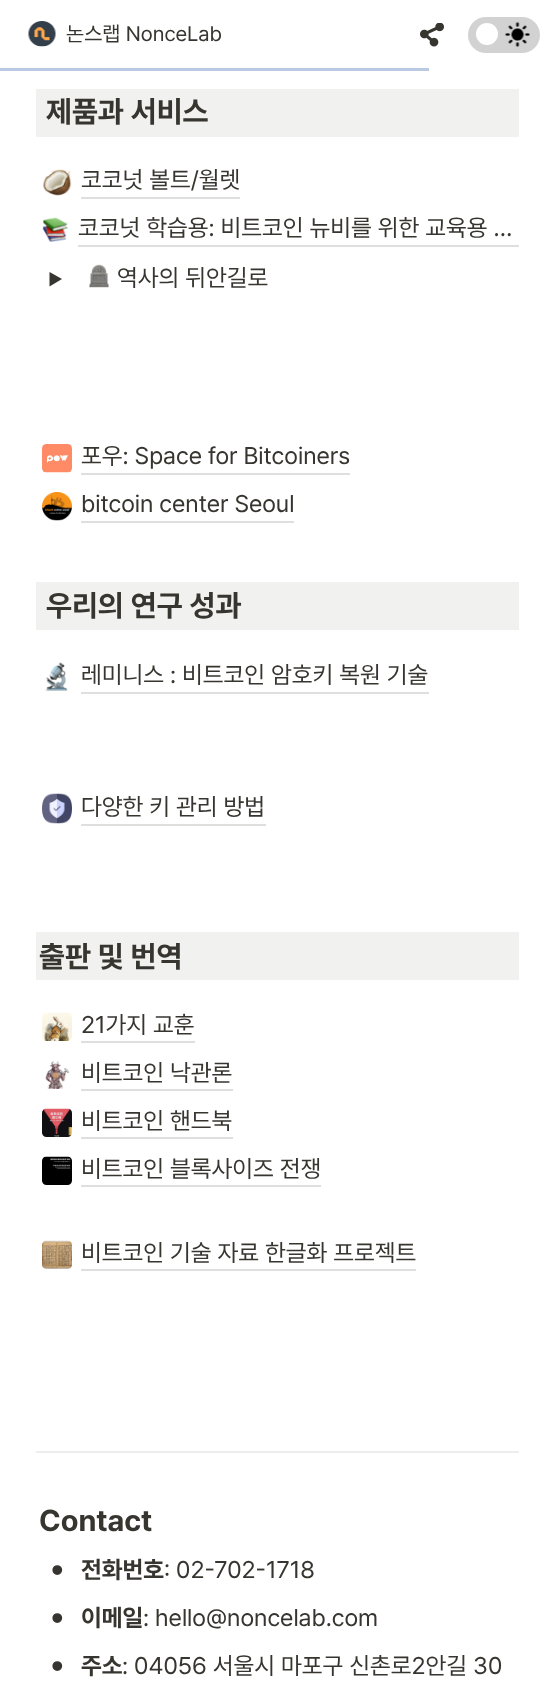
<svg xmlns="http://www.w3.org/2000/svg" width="555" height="1700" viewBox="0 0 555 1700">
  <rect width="100%" height="100%" fill="rgb(255,255,255)"/>
  <image x="28" y="21" width="28" height="26" href="pic1.png"/>
  <text x="66" y="41" font-family="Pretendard" font-size="21" fill="rgb(55,53,47)">논스랩 NonceLab</text>
  <image x="420" y="23" width="24" height="24" href="pic2.png"/>
  <rect x="468" y="17" width="72" height="36" rx="18" fill="rgb(210,210,210)"/>
  <image x="505" y="22" width="25" height="25" href="pic3.png"/>
  <circle cx="487" cy="34" r="11" fill="rgb(255,255,255)"/>
  <rect x="0" y="68" width="429" height="3" fill="rgb(185,201,228)"/>
  <rect x="36" y="89" width="483" height="48" fill="rgb(241,241,239)"/>
  <text x="46" y="122" font-family="Pretendard" font-size="30" font-weight="bold" fill="rgb(55,53,47)">제품과 서비스</text>
  <image x="43" y="169" width="29" height="27" href="pic4.png"/>
  <rect x="81" y="197" width="159" height="2" fill="rgb(223,223,222)"/>
  <text x="81" y="188" font-family="Pretendard" font-size="24" fill="rgb(55,53,47)">코코넛 볼트/월렛</text>
  <image x="42" y="217" width="26" height="25" href="pic5.png"/>
  <rect x="78" y="245" width="441" height="2" fill="rgb(223,223,222)"/>
  <text x="78" y="236" font-family="Pretendard" font-size="24" fill="rgb(55,53,47)">코코넛 학습용: 비트코인 뉴비를 위한 교육용 …</text>
  <path d="M49.5 272L62 279L49.5 286.5Z" fill="rgb(55,53,47)"/>
  <image x="89" y="264" width="20" height="24" href="pic6.png"/>
  <text x="117" y="286" font-family="Pretendard" font-size="24" fill="rgb(55,53,47)">역사의 뒤안길로</text>
  <image x="42" y="444" width="30" height="29" href="pic7.png"/>
  <rect x="81" y="473" width="269" height="2" fill="rgb(223,223,222)"/>
  <text x="81" y="464" font-family="Pretendard" font-size="24" fill="rgb(55,53,47)">포우: Space for Bitcoiners</text>
  <image x="42" y="492" width="30" height="29" href="pic8.png"/>
  <rect x="81" y="521" width="213" height="2" fill="rgb(223,223,222)"/>
  <text x="81" y="512" font-family="Pretendard" font-size="24" fill="rgb(55,53,47)">bitcoin center Seoul</text>
  <rect x="36" y="582" width="483" height="48" fill="rgb(241,241,239)"/>
  <text x="46" y="616" font-family="Pretendard" font-size="30" font-weight="bold" fill="rgb(55,53,47)">우리의 연구 성과</text>
  <image x="45" y="662" width="23" height="29" href="pic9.png"/>
  <rect x="81" y="692" width="348" height="2" fill="rgb(223,223,222)"/>
  <text x="81" y="683" font-family="Pretendard" font-size="24" fill="rgb(55,53,47)">레미니스 : 비트코인 암호키 복원 기술</text>
  <image x="42" y="793" width="30" height="31" href="pic10.png"/>
  <rect x="81" y="824" width="185" height="2" fill="rgb(223,223,222)"/>
  <text x="81" y="815" font-family="Pretendard" font-size="24" fill="rgb(55,53,47)">다양한 키 관리 방법</text>
  <rect x="36" y="932" width="483" height="48" fill="rgb(241,241,239)"/>
  <text x="39" y="967" font-family="Pretendard" font-size="30" font-weight="bold" fill="rgb(55,53,47)">출판 및 번역</text>
  <image x="42" y="1012" width="30" height="29" href="pic11.png"/>
  <rect x="81" y="1041" width="114" height="2" fill="rgb(223,223,222)"/>
  <text x="81" y="1033" font-family="Pretendard" font-size="24" fill="rgb(55,53,47)">21가지 교훈</text>
  <image x="45" y="1060" width="25" height="29" href="pic12.png"/>
  <rect x="81" y="1089" width="152" height="2" fill="rgb(223,223,222)"/>
  <text x="81" y="1081" font-family="Pretendard" font-size="24" fill="rgb(55,53,47)">비트코인 낙관론</text>
  <image x="42" y="1108" width="30" height="29" href="pic13.png"/>
  <rect x="81" y="1137" width="152" height="2" fill="rgb(223,223,222)"/>
  <text x="81" y="1129" font-family="Pretendard" font-size="24" fill="rgb(55,53,47)">비트코인 핸드북</text>
  <image x="42" y="1156" width="30" height="29" href="pic14.png"/>
  <rect x="81" y="1185" width="240" height="2" fill="rgb(223,223,222)"/>
  <text x="81" y="1177" font-family="Pretendard" font-size="24" fill="rgb(55,53,47)">비트코인 블록사이즈 전쟁</text>
  <image x="42" y="1240" width="30" height="29" href="pic15.png"/>
  <rect x="81" y="1269" width="335" height="2" fill="rgb(223,223,222)"/>
  <text x="81" y="1261" font-family="Pretendard" font-size="24" fill="rgb(55,53,47)">비트코인 기술 자료 한글화 프로젝트</text>
  <rect x="36" y="1451" width="483" height="2" fill="rgb(237,237,236)"/>
  <text x="39" y="1531" font-family="Pretendard" font-size="30" font-weight="bold" fill="rgb(55,53,47)">Contact</text>
  <text x="51" y="1582" font-family="Liberation Sans" font-size="36" fill="rgb(55,53,47)">•</text>
  <text x="81" y="1578" font-family="Pretendard" font-size="24" font-weight="bold" fill="rgb(55,53,47)">전화번호</text>
  <text x="164" y="1578" font-family="Pretendard" font-size="24" fill="rgb(55,53,47)">: 02-702-1718</text>
  <text x="51" y="1630" font-family="Liberation Sans" font-size="36" fill="rgb(55,53,47)">•</text>
  <text x="81" y="1626" font-family="Pretendard" font-size="24" font-weight="bold" fill="rgb(55,53,47)">이메일</text>
  <text x="143" y="1626" font-family="Pretendard" font-size="24" fill="rgb(55,53,47)">: hello@noncelab.com</text>
  <text x="51" y="1678" font-family="Liberation Sans" font-size="36" fill="rgb(55,53,47)">•</text>
  <text x="81" y="1674" font-family="Pretendard" font-size="24" font-weight="bold" fill="rgb(55,53,47)">주소</text>
  <text x="122" y="1674" font-family="Pretendard" font-size="24" fill="rgb(55,53,47)">: 04056 서울시 마포구 신촌로2안길 30</text>
</svg>
